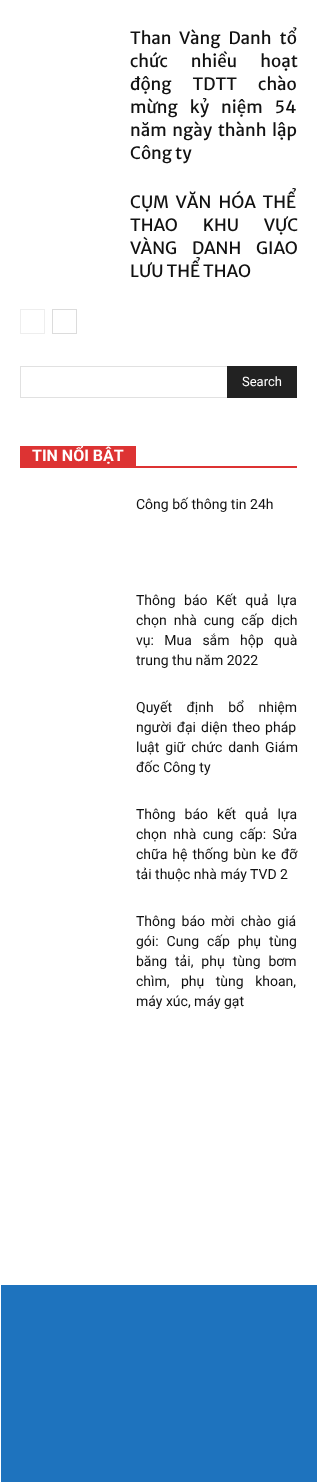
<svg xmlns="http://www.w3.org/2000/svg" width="317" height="1482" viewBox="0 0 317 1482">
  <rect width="100%" height="100%" fill="rgb(255,255,255)"/>
  <g font-family="Merriweather Sans" font-size="17" fill="rgb(17,17,17)">
    <text>
      <tspan x="130" y="44" word-spacing="5">Than Vàng Danh tổ</tspan>
      <tspan x="130" y="67" word-spacing="20">chức nhiều hoạt</tspan>
      <tspan x="130" y="90" word-spacing="18">động TDTT chào</tspan>
      <tspan x="130" y="113" word-spacing="9">mừng kỷ niệm 54</tspan>
      <tspan x="130" y="136" word-spacing="2.5">năm ngày thành lập</tspan>
      <tspan x="130" y="159">Công ty</tspan>
    </text>
    <text>
      <tspan x="130" y="208" word-spacing="4">CỤM VĂN HÓA THỂ</tspan>
      <tspan x="130" y="231" word-spacing="22">THAO KHU VỰC</tspan>
      <tspan x="130" y="254" word-spacing="12">VÀNG DANH GIAO</tspan>
      <tspan x="130" y="277">LƯU THỂ THAO</tspan>
    </text>
  </g>
  <rect x="20.5" y="309.5" width="24" height="24" fill="none" stroke="rgb(238,238,238)"/>
  <rect x="52.5" y="309.5" width="24" height="24" fill="none" stroke="rgb(220,220,220)"/>
  <rect x="20" y="366" width="207" height="1" fill="rgb(225,225,225)"/>
  <rect x="20" y="397" width="207" height="1" fill="rgb(225,225,225)"/>
  <rect x="20" y="366" width="1" height="32" fill="rgb(225,225,225)"/>
  <rect x="227" y="366" width="70" height="32" fill="rgb(34,34,34)"/>
  <text x="242" y="386" font-family="Roboto" font-size="13" fill="rgb(255,255,255)">Search</text>
  <rect x="20" y="466" width="277" height="2" fill="rgb(221,51,51)"/>
  <rect x="20" y="446" width="116" height="20" fill="rgb(221,51,51)"/>
  <text x="32" y="461" font-family="Roboto" font-size="16" font-weight="bold" fill="rgb(255,255,255)">TIN NỔI BẬT</text>
  <g font-family="Roboto" font-size="14" fill="rgb(17,17,17)">
    <text x="136" y="509">Công bố thông tin 24h</text>
    <text>
      <tspan x="136" y="605" word-spacing="5">Thông báo Kết quả lựa</tspan>
      <tspan x="136" y="625" word-spacing="3.5">chọn nhà cung cấp dịch</tspan>
      <tspan x="136" y="645" word-spacing="7">vụ: Mua sắm hộp quà</tspan>
      <tspan x="136" y="665">trung thu năm 2022</tspan>
    </text>
    <text>
      <tspan x="136" y="712" word-spacing="11">Quyết định bổ nhiệm</tspan>
      <tspan x="136" y="732" word-spacing="1.5">người đại diện theo pháp</tspan>
      <tspan x="136" y="752" word-spacing="2.5">luật giữ chức danh Giám</tspan>
      <tspan x="136" y="772">đốc Công ty</tspan>
    </text>
    <text>
      <tspan x="136" y="819" word-spacing="5.5">Thông báo kết quả lựa</tspan>
      <tspan x="136" y="839" word-spacing="3">chọn nhà cung cấp: Sửa</tspan>
      <tspan x="136" y="859" word-spacing="1.5">chữa hệ thống bùn ke đỡ</tspan>
      <tspan x="136" y="879">tải thuộc nhà máy TVD 2</tspan>
    </text>
    <text>
      <tspan x="136" y="926" word-spacing="2.5">Thông báo mời chào giá</tspan>
      <tspan x="136" y="946" word-spacing="4.5">gói: Cung cấp phụ tùng</tspan>
      <tspan x="136" y="966" word-spacing="4.5">băng tải, phụ tùng bơm</tspan>
      <tspan x="136" y="986" word-spacing="8">chìm, phụ tùng khoan,</tspan>
      <tspan x="136" y="1006">máy xúc, máy gạt</tspan>
    </text>
  </g>
  <rect x="1" y="1285" width="316" height="197" fill="rgb(30,115,190)"/>
</svg>
